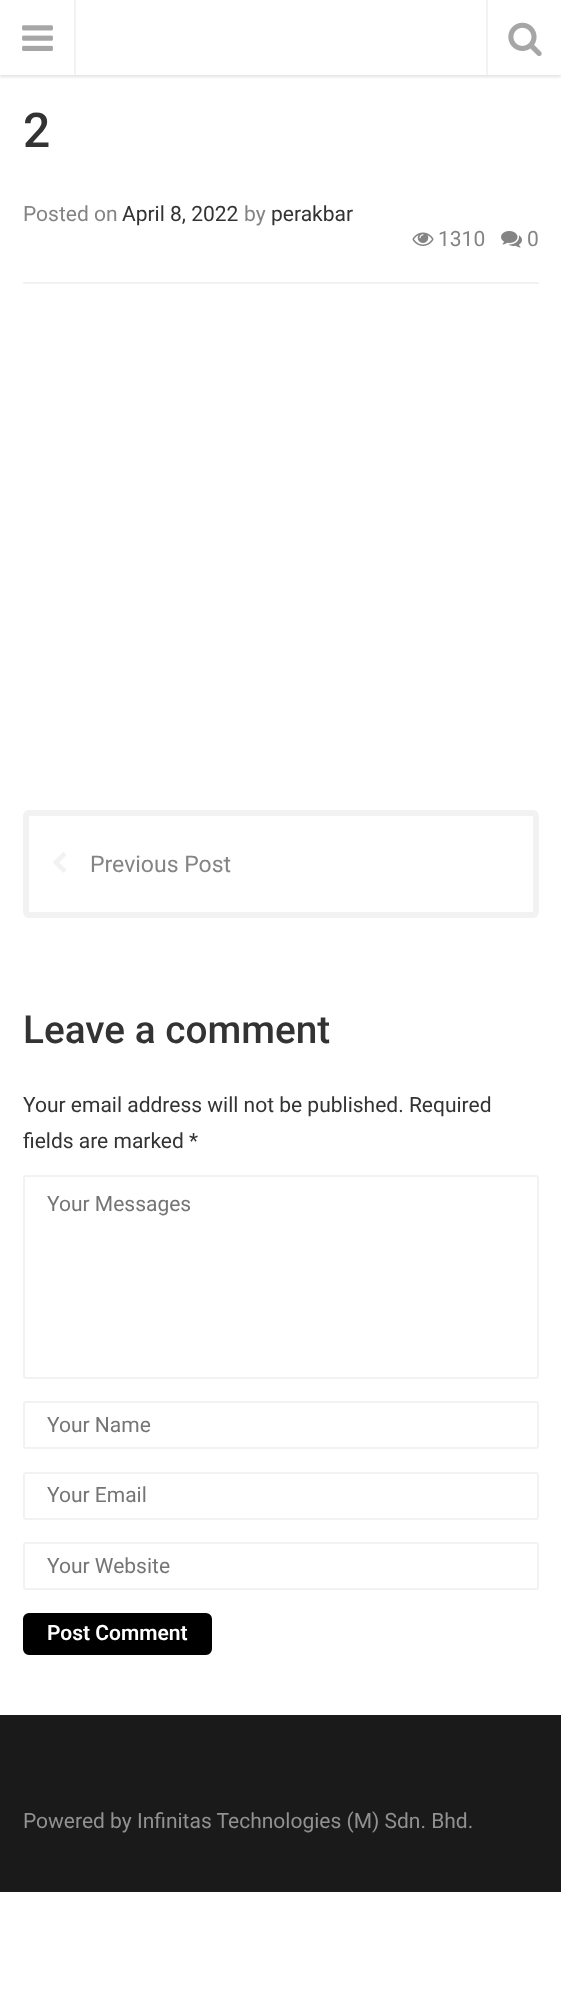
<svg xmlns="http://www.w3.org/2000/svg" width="561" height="1998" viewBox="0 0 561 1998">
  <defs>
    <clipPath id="clip1"><rect x="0" y="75" width="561" height="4"/></clipPath>
  </defs>
  <rect width="100%" height="100%" fill="rgb(255,255,255)"/>
  <g clip-path="url(#clip1)">
    <rect x="0" y="2" width="561" height="75" fill="rgba(108,108,108,0.2)" filter="blur(1.5px)"/>
  </g>
  <rect x="74" y="0" width="2" height="75" fill="rgb(242,242,242)"/>
  <image x="22" y="25" width="31" height="26" href="pic1.png"/>
  <rect x="486" y="0" width="2" height="75" fill="rgb(242,242,242)"/>
  <image x="508" y="22" width="34" height="35" href="pic2.png"/>
  <text x="23" y="147" font-family="Roboto" font-size="48" font-weight="500" fill="rgb(51,51,51)">2</text>
  <rect x="23" y="282" width="516" height="2" fill="rgb(242,242,242)"/>
  <text x="23" y="221" font-family="Roboto" font-size="21" fill="rgb(133,132,132)">Posted on</text>
  <text x="122" y="221" font-family="Roboto" font-size="21" fill="rgb(51,51,51)">April 8, 2022</text>
  <text x="244" y="221" font-family="Roboto" font-size="21" fill="rgb(133,132,132)">by</text>
  <text x="271" y="221" font-family="Roboto" font-size="21" fill="rgb(51,51,51)">perakbar</text>
  <image x="412" y="232" width="22" height="14" href="pic3.png"/>
  <text x="438" y="246" font-family="Roboto" font-size="21" fill="rgb(133,132,132)">1310</text>
  <image x="501" y="231" width="21" height="17" href="pic4.png"/>
  <text x="527" y="246" font-family="Roboto" font-size="21" fill="rgb(133,132,132)">0</text>
  <rect x="26" y="813" width="510" height="102" rx="3" fill="none" stroke="rgb(242,242,242)" stroke-width="6"/>
  <image x="53" y="852" width="13" height="21" href="pic5.png"/>
  <text x="90" y="872" font-family="Roboto" font-size="23" fill="rgb(133,132,132)">Previous Post</text>
  <text x="23" y="1043" font-family="Roboto" font-size="38.75" font-weight="500" fill="rgb(51,51,51)">Leave a comment</text>
  <g font-family="Roboto" font-size="21" fill="rgb(51,51,51)">
    <text>
      <tspan x="23" y="1112">Your email address will not be published. Required</tspan>
      <tspan x="23" y="1148">fields are marked *</tspan>
    </text>
  </g>
  <rect x="24" y="1176" width="514" height="202" rx="2" fill="none" stroke="rgb(242,242,242)" stroke-width="2"/>
  <text x="47" y="1211" font-family="Roboto" font-size="21" fill="rgb(117,117,117)">Your Messages</text>
  <rect x="24" y="1402" width="514" height="46" rx="2" fill="none" stroke="rgb(242,242,242)" stroke-width="2"/>
  <text x="47" y="1432" font-family="Roboto" font-size="21" fill="rgb(117,117,117)">Your Name</text>
  <rect x="24" y="1473" width="514" height="46" rx="2" fill="none" stroke="rgb(242,242,242)" stroke-width="2"/>
  <text x="47" y="1502" font-family="Roboto" font-size="21" fill="rgb(117,117,117)">Your Email</text>
  <rect x="24" y="1543" width="514" height="46" rx="2" fill="none" stroke="rgb(242,242,242)" stroke-width="2"/>
  <text x="47" y="1573" font-family="Roboto" font-size="21" fill="rgb(117,117,117)">Your Website</text>
  <rect x="24" y="1614" width="187" height="40" rx="5" fill="rgb(0,0,0)" stroke="rgb(0,0,0)" stroke-width="2"/>
  <text x="47" y="1640" font-family="Roboto" font-size="21" font-weight="600" fill="rgb(255,255,255)">Post Comment</text>
  <rect x="0" y="1715" width="561" height="177" fill="rgb(26,26,26)"/>
  <text x="23" y="1828" font-family="Roboto" font-size="21" fill="rgb(146,145,145)">Powered by Infinitas Technologies (M) Sdn. Bhd.</text>
</svg>
